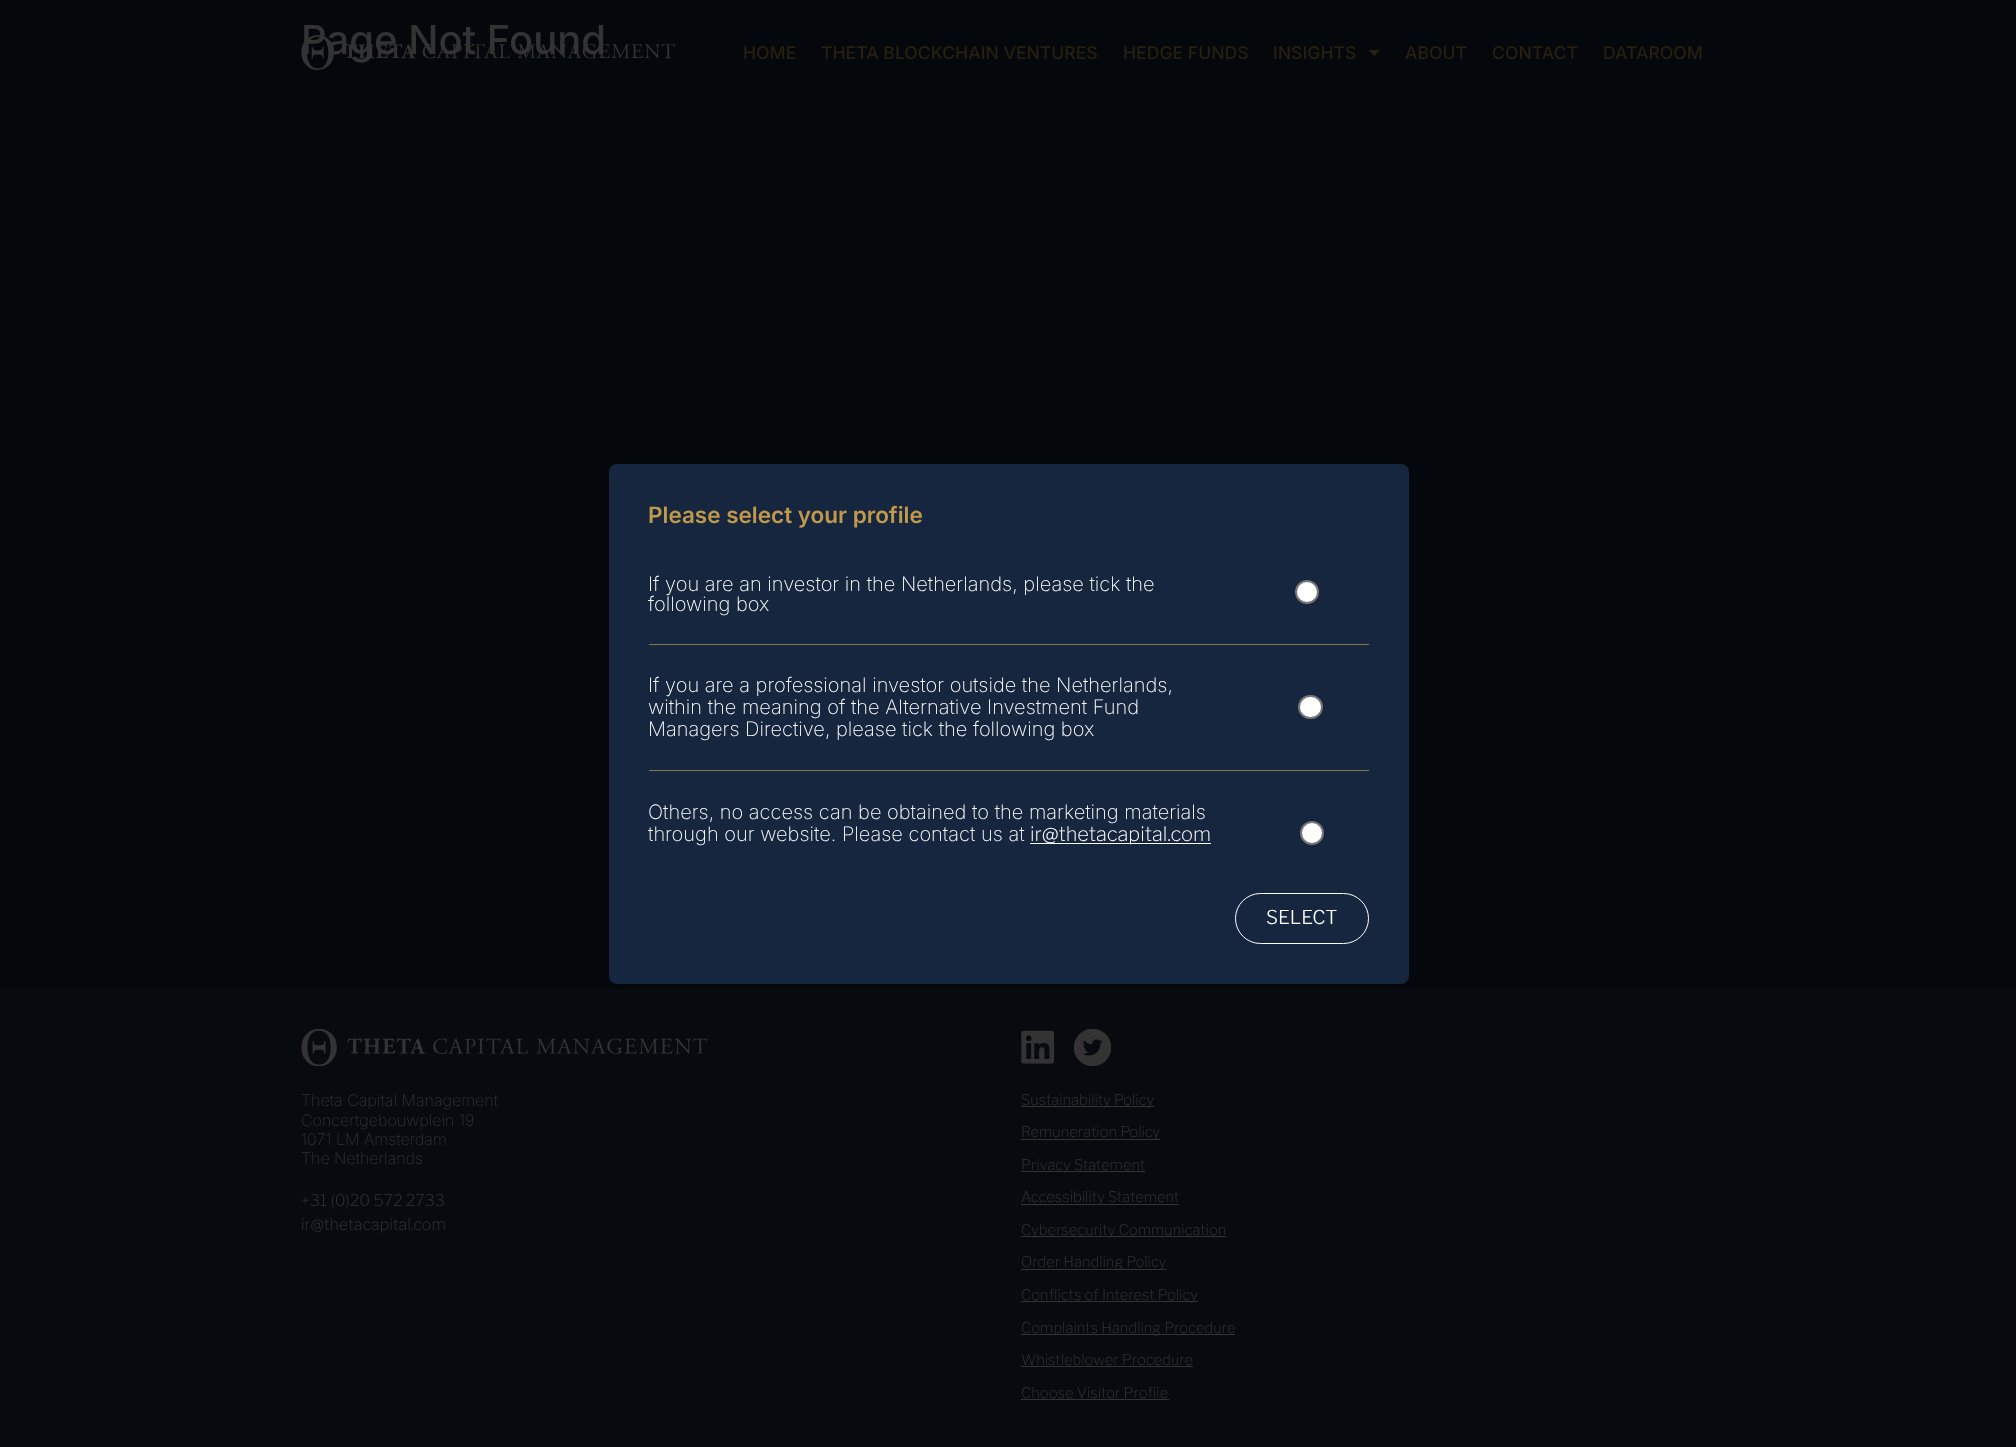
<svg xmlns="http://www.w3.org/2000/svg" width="2016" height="1447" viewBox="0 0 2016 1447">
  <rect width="100%" height="100%" fill="rgb(4,8,12)"/>
  <text x="301" y="54" font-family="Inter" font-size="40" font-weight="500" fill="rgb(51,51,51)">Page Not Found</text>
  <image x="301" y="35" width="374" height="35" href="pic1.png"/>
  <g font-family="Inter" font-size="17.6" font-weight="500" fill="rgb(39,31,15)">
    <text x="743" y="59">HOME</text>
    <text x="821" y="59">THETA BLOCKCHAIN VENTURES</text>
    <text x="1123" y="59">HEDGE FUNDS</text>
    <text x="1273" y="59">INSIGHTS</text>
  </g>
  <image x="1369" y="49" width="11" height="7" href="pic2.png"/>
  <g font-family="Inter" font-size="17.6" font-weight="500" fill="rgb(39,31,15)">
    <text x="1405" y="59">ABOUT</text>
    <text x="1492" y="59">CONTACT</text>
    <text x="1603" y="59">DATAROOM</text>
  </g>
  <rect x="609" y="464" width="800" height="520" rx="8" fill="rgb(22,38,62)"/>
  <text x="648" y="523" font-family="Inter" font-size="22.5" font-weight="600" fill="rgb(193,153,75)">Please select your profile</text>
  <rect x="649" y="644" width="720" height="1" fill="rgb(128,116,75)"/>
  <g font-family="Inter" font-size="20" font-weight="200" fill="rgb(255,255,255)">
    <text>
      <tspan x="648" y="591">If you are an investor in the Netherlands, please tick the</tspan>
      <tspan x="648" y="611">following box</tspan>
    </text>
  </g>
  <circle cx="1307" cy="592" r="11" fill="rgb(255,255,255)" stroke="rgb(118,118,118)" stroke-width="2"/>
  <rect x="649" y="770" width="720" height="1" fill="rgb(128,116,75)"/>
  <g font-family="Inter" font-size="20" font-weight="200" fill="rgb(255,255,255)">
    <text>
      <tspan x="648" y="692">If you are a professional investor outside the Netherlands,</tspan>
      <tspan x="648" y="714">within the meaning of the Alternative Investment Fund</tspan>
      <tspan x="648" y="736">Managers Directive, please tick the following box</tspan>
    </text>
  </g>
  <rect x="1299" y="696" width="23" height="22" rx="11" fill="rgb(255,255,255)" stroke="rgb(118,118,118)" stroke-width="2"/>
  <g font-family="Inter" font-size="20" font-weight="200" fill="rgb(255,255,255)">
    <text>
      <tspan x="648" y="819">Others, no access can be obtained to the marketing materials</tspan>
      <tspan x="648" y="841">through our website. Please contact us at</tspan>
    </text>
  </g>
  <rect x="1030" y="843" width="181" height="1" fill="rgb(255,255,255)"/>
  <text x="1030" y="841" font-family="Libre Franklin" font-size="20" font-weight="200" fill="rgb(255,255,255)">ir@thetacapital.com</text>
  <circle cx="1312" cy="833" r="11" fill="rgb(255,255,255)" stroke="rgb(118,118,118)" stroke-width="2"/>
  <rect x="1235.5" y="893.5" width="133" height="50" rx="25" fill="none" stroke="rgb(255,255,255)"/>
  <text x="1266" y="924" font-family="Libre Franklin" font-size="19" font-weight="300" fill="rgb(255,255,255)">SELECT</text>
  <rect x="0" y="989" width="2016" height="458" fill="rgb(7,10,15)"/>
  <image x="301" y="1029" width="407" height="37" href="pic3.png"/>
  <g font-family="Inter" font-size="16" font-weight="200" fill="rgb(51,51,51)">
    <text>
      <tspan x="301" y="1106">Theta Capital Management</tspan>
      <tspan x="301" y="1126">Concertgebouwplein 19</tspan>
      <tspan x="301" y="1145">1071 LM Amsterdam</tspan>
      <tspan x="301" y="1164">The Netherlands</tspan>
    </text>
  </g>
  <g font-family="Libre Franklin" font-size="16" font-weight="200" fill="rgb(51,51,51)">
    <text>
      <tspan x="301" y="1206">+31 (0)20 572 2733</tspan>
      <tspan x="301" y="1230">ir@thetacapital.com</tspan>
    </text>
  </g>
  <image x="1021" y="1030" width="34" height="34" href="pic4.png"/>
  <image x="1074" y="1029" width="37" height="37" href="pic5.png"/>
  <rect x="1021" y="1106" width="133" height="1" fill="rgb(51,51,51)"/>
  <text x="1021" y="1105" font-family="Libre Franklin" font-size="14.75" font-weight="200" fill="rgb(51,51,51)">Sustainability Policy</text>
  <rect x="1021" y="1139" width="139" height="1" fill="rgb(51,51,51)"/>
  <text x="1021" y="1137" font-family="Libre Franklin" font-size="14.75" font-weight="200" fill="rgb(51,51,51)">Remuneration Policy</text>
  <rect x="1021" y="1171" width="124" height="1" fill="rgb(51,51,51)"/>
  <text x="1021" y="1170" font-family="Libre Franklin" font-size="14.75" font-weight="200" fill="rgb(51,51,51)">Privacy Statement</text>
  <rect x="1021" y="1204" width="158" height="1" fill="rgb(51,51,51)"/>
  <text x="1021" y="1202" font-family="Libre Franklin" font-size="14.75" font-weight="200" fill="rgb(51,51,51)">Accessibility Statement</text>
  <rect x="1021" y="1236" width="205" height="1" fill="rgb(51,51,51)"/>
  <text x="1021" y="1235" font-family="Libre Franklin" font-size="14.75" font-weight="200" fill="rgb(51,51,51)">Cybersecurity Communication</text>
  <rect x="1021" y="1269" width="145" height="1" fill="rgb(51,51,51)"/>
  <text x="1021" y="1267" font-family="Libre Franklin" font-size="14.75" font-weight="200" fill="rgb(51,51,51)">Order Handling Policy</text>
  <rect x="1021" y="1301" width="177" height="1" fill="rgb(51,51,51)"/>
  <text x="1021" y="1300" font-family="Libre Franklin" font-size="14.75" font-weight="200" fill="rgb(51,51,51)">Conflicts of Interest Policy</text>
  <rect x="1021" y="1334" width="214" height="1" fill="rgb(51,51,51)"/>
  <g font-family="Libre Franklin" font-size="14.75" font-weight="200" fill="rgb(51,51,51)">
    <text x="1021" y="1333">Complaints Handling Procedure</text>
    <text x="1021" y="1365">Whistleblower Procedure</text>
  </g>
  <rect x="1021" y="1366" width="172" height="1" fill="rgb(51,51,51)"/>
  <text x="1021" y="1398" font-family="Libre Franklin" font-size="14.75" font-weight="200" fill="rgb(51,51,51)">Choose Visitor Profile</text>
  <rect x="1021" y="1399" width="148" height="1" fill="rgb(51,51,51)"/>
</svg>
